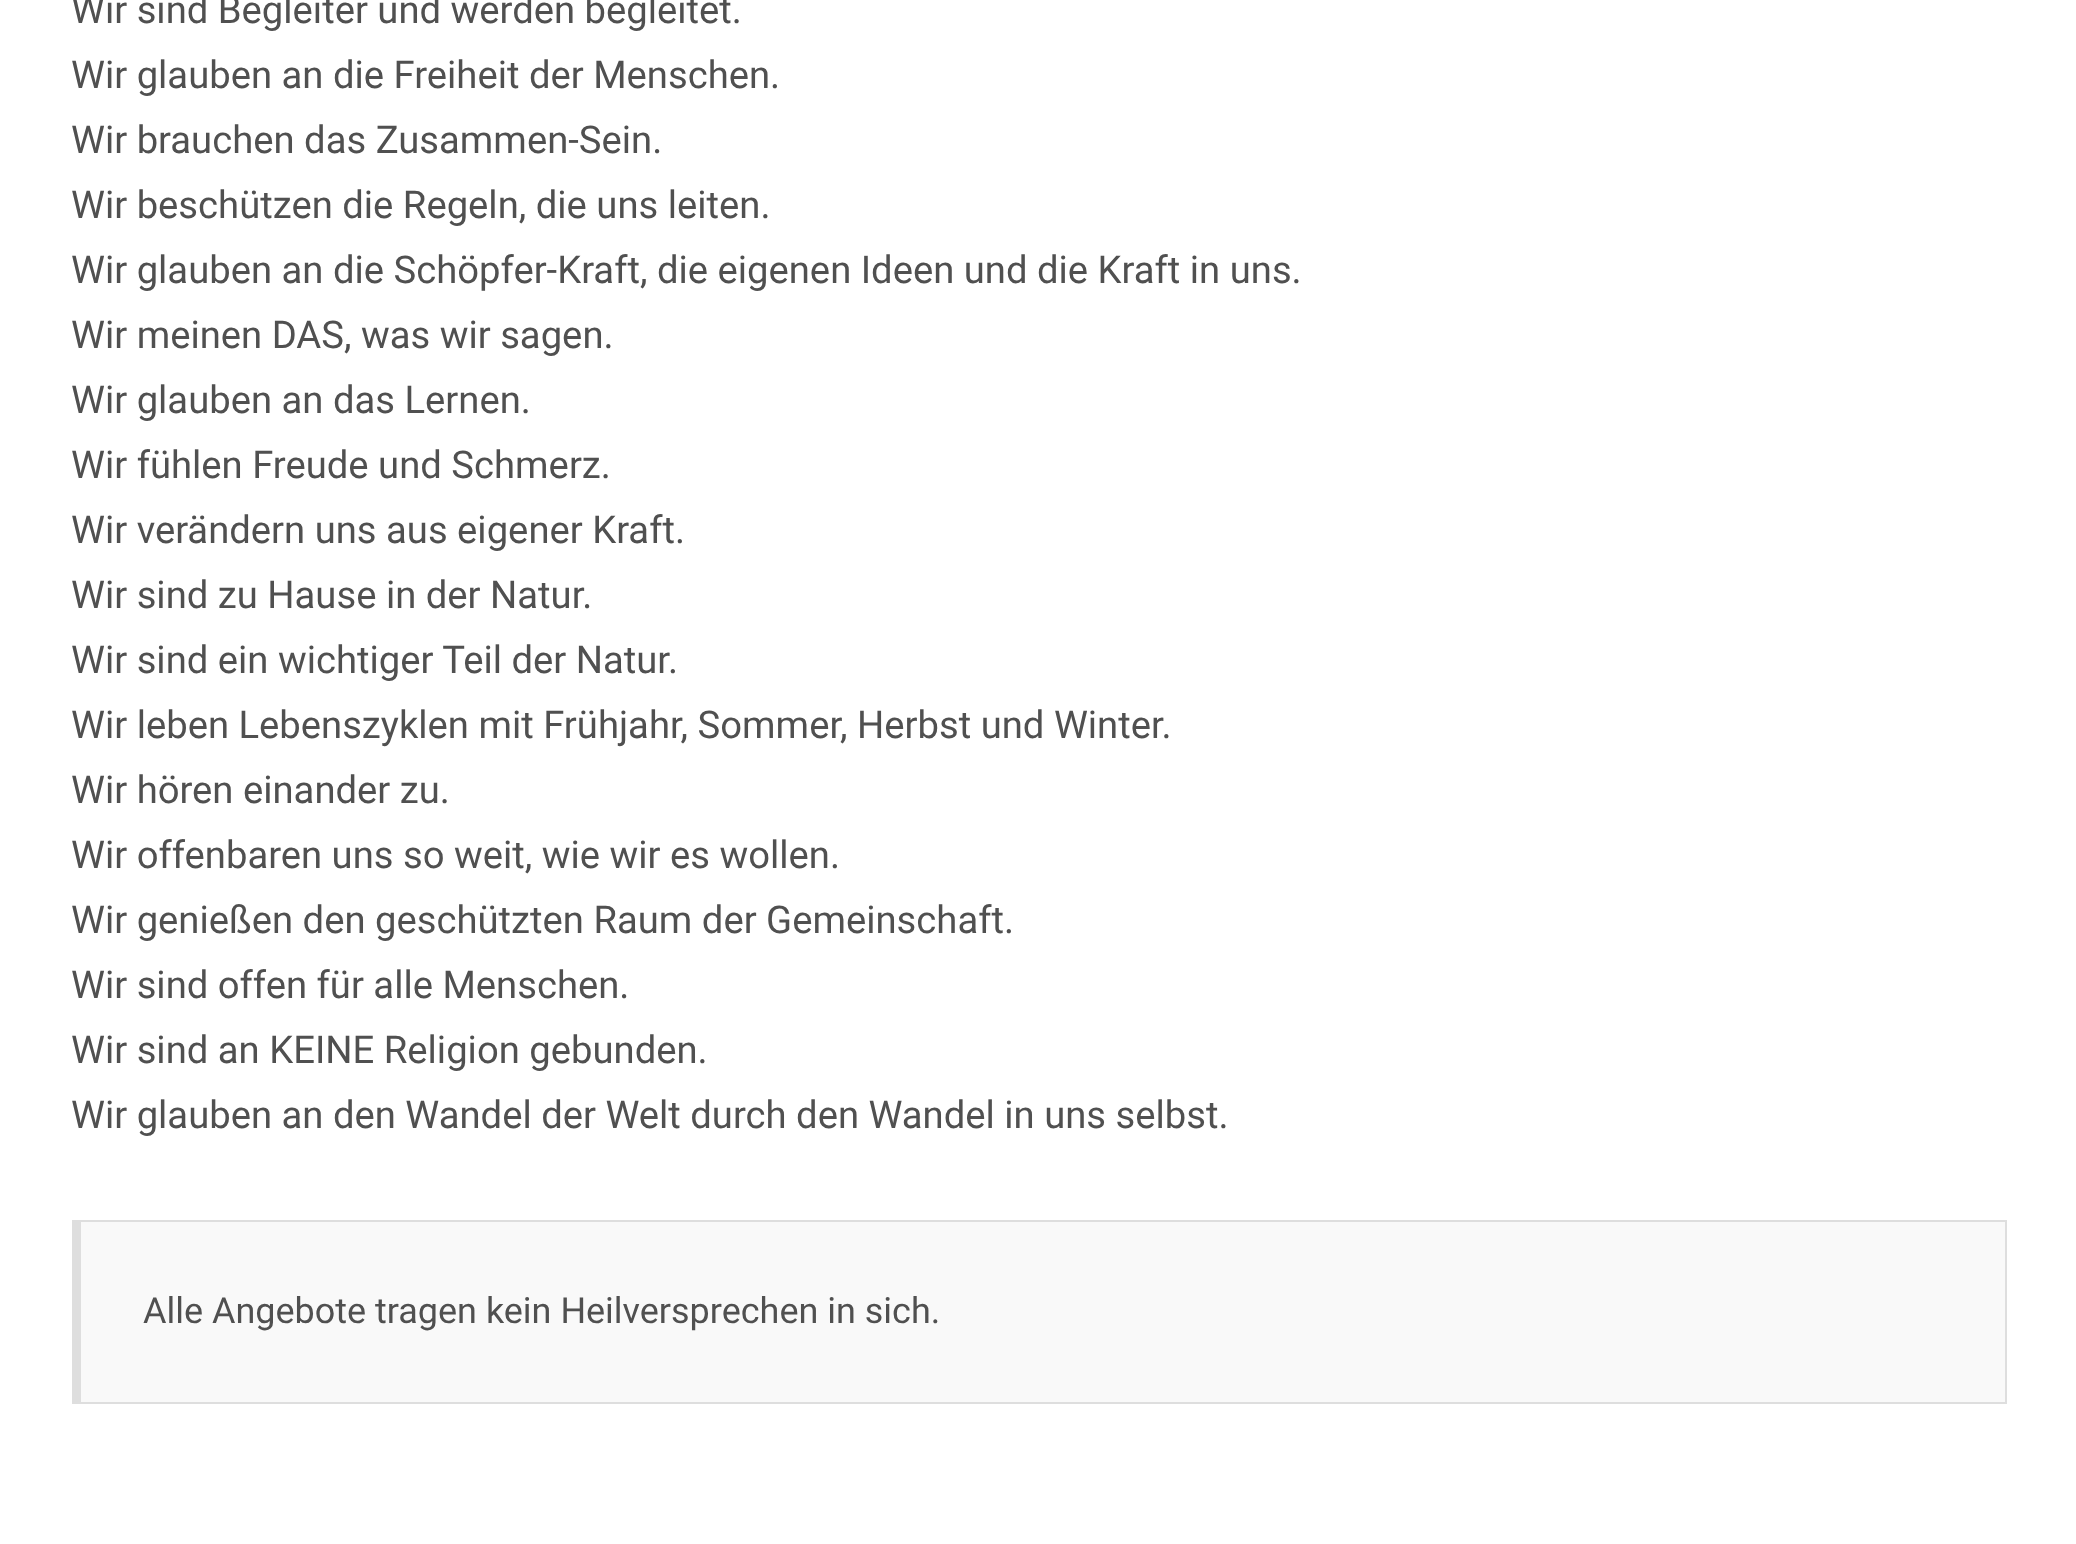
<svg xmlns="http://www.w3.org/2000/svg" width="2076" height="1544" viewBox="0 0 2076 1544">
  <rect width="100%" height="100%" fill="rgb(255,255,255)"/>
  <g font-family="Roboto" font-size="38.25" fill="rgb(80,80,80)">
    <text>
      <tspan x="71" y="23">Wir sind Begleiter und werden begleitet.</tspan>
      <tspan x="71" y="88">Wir glauben an die Freiheit der Menschen.</tspan>
      <tspan x="71" y="153">Wir brauchen das Zusammen-Sein.</tspan>
      <tspan x="71" y="218">Wir beschützen die Regeln, die uns leiten.</tspan>
      <tspan x="71" y="283">Wir glauben an die Schöpfer-Kraft, die eigenen Ideen und die Kraft in uns.</tspan>
      <tspan x="71" y="348">Wir meinen DAS, was wir sagen.</tspan>
      <tspan x="71" y="413">Wir glauben an das Lernen.</tspan>
      <tspan x="71" y="478">Wir fühlen Freude und Schmerz.</tspan>
      <tspan x="71" y="543">Wir verändern uns aus eigener Kraft.</tspan>
      <tspan x="71" y="608">Wir sind zu Hause in der Natur.</tspan>
      <tspan x="71" y="673">Wir sind ein wichtiger Teil der Natur.</tspan>
      <tspan x="71" y="738">Wir leben Lebenszyklen mit Frühjahr, Sommer, Herbst und Winter.</tspan>
      <tspan x="71" y="803">Wir hören einander zu.</tspan>
      <tspan x="71" y="868">Wir offenbaren uns so weit, wie wir es wollen.</tspan>
      <tspan x="71" y="933">Wir genießen den geschützten Raum der Gemeinschaft.</tspan>
      <tspan x="71" y="998">Wir sind offen für alle Menschen.</tspan>
      <tspan x="71" y="1063">Wir sind an KEINE Religion gebunden.</tspan>
      <tspan x="71" y="1128">Wir glauben an den Wandel der Welt durch den Wandel in uns selbst.</tspan>
    </text>
  </g>
  <rect x="81" y="1222" width="1924" height="180" fill="rgb(249,249,249)"/>
  <rect x="81" y="1220" width="1926" height="2" fill="rgb(222,222,222)"/>
  <rect x="2005" y="1220" width="2" height="184" fill="rgb(222,222,222)"/>
  <rect x="81" y="1402" width="1926" height="2" fill="rgb(222,222,222)"/>
  <rect x="72" y="1220" width="9" height="184" fill="rgb(222,222,222)"/>
  <text x="143" y="1323" font-family="Roboto" font-size="36" fill="rgb(80,80,80)">Alle Angebote tragen kein Heilversprechen in sich.</text>
</svg>
